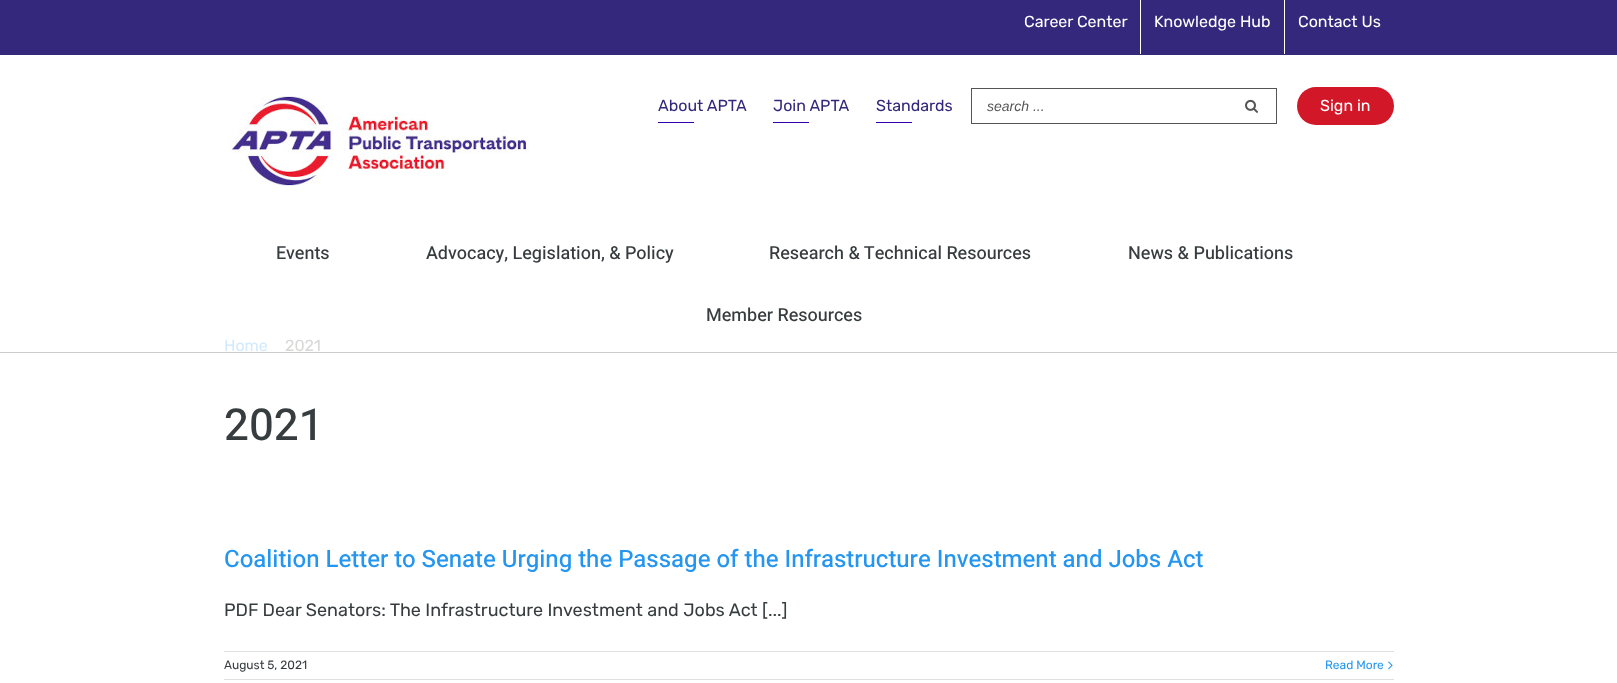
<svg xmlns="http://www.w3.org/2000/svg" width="1617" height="683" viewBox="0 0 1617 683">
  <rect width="100%" height="100%" fill="rgb(255,255,255)"/>
  <rect x="0" y="0" width="1617" height="55" fill="rgb(51,40,124)"/>
  <text x="1024" y="27" font-family="Rubik" font-size="16" font-weight="300" fill="rgb(255,255,255)">Career Center</text>
  <rect x="1140" y="0" width="1" height="54" fill="rgb(255,255,255)"/>
  <text x="1154" y="27" font-family="Rubik" font-size="16" font-weight="300" fill="rgb(255,255,255)">Knowledge Hub</text>
  <rect x="1284" y="0" width="1" height="54" fill="rgb(255,255,255)"/>
  <text x="1298" y="27" font-family="Rubik" font-size="16" font-weight="300" fill="rgb(255,255,255)">Contact Us</text>
  <image x="229" y="96" width="300" height="90" href="pic1.png"/>
  <text x="658" y="111" font-family="Rubik" font-size="16" font-weight="300" fill="rgb(51,40,124)">About APTA</text>
  <rect x="658" y="122" width="36" height="1" fill="rgb(52,0,174)"/>
  <text x="773" y="111" font-family="Rubik" font-size="16" font-weight="300" fill="rgb(51,40,124)">Join APTA</text>
  <rect x="773" y="122" width="36" height="1" fill="rgb(52,0,174)"/>
  <text x="876" y="111" font-family="Rubik" font-size="16" font-weight="300" fill="rgb(51,40,124)">Standards</text>
  <rect x="876" y="122" width="36" height="1" fill="rgb(52,0,174)"/>
  <rect x="971.5" y="88.5" width="305" height="35" fill="none" stroke="rgb(85,85,85)"/>
  <text x="987" y="111" font-family="Liberation Sans" font-size="14" font-style="italic" fill="rgb(85,85,85)">search ...</text>
  <image x="1245" y="99" width="13" height="14" href="pic2.png"/>
  <rect x="1297" y="87" width="97" height="38" rx="19" fill="rgb(210,23,41)"/>
  <text x="1320" y="111" font-family="Rubik" font-size="16" font-weight="300" fill="rgb(255,255,255)">Sign in</text>
  <rect x="0" y="352" width="1617" height="1" fill="rgb(204,204,204)"/>
  <g font-family="Heebo" font-size="18" font-weight="500" fill="rgb(55,61,63)">
    <text x="276" y="259">Events</text>
    <text x="426" y="259">Advocacy, Legislation, &amp; Policy</text>
    <text x="769" y="259">Research &amp; Technical Resources</text>
    <text x="1128" y="259">News &amp; Publications</text>
    <text x="706" y="321">Member Resources</text>
  </g>
  <text x="224" y="351" font-family="Rubik" font-size="16" font-weight="300" fill="rgb(211,234,252)">Home</text>
  <text x="285" y="351" font-family="Rubik" font-size="16" font-weight="300" fill="rgb(216,217,215)">2021</text>
  <text x="224" y="440" font-family="Heebo" font-size="44" font-weight="500" fill="rgb(55,61,63)">2021</text>
  <text x="224" y="567" font-family="Heebo" font-size="24" font-weight="500" fill="rgb(37,150,240)">Coalition Letter to Senate Urging the Passage of the Infrastructure Investment and Jobs Act</text>
  <text x="224" y="616" font-family="Rubik" font-size="18" font-weight="300" fill="rgb(55,61,63)">PDF Dear Senators: The Infrastructure Investment and Jobs Act [...]</text>
  <rect x="224" y="651" width="1170" height="1" fill="rgb(224,222,222)"/>
  <rect x="224" y="679" width="1170" height="1" fill="rgb(224,222,222)"/>
  <text x="224" y="669" font-family="Rubik" font-size="12" font-weight="300" fill="rgb(55,61,63)">August 5, 2021</text>
  <text x="1325" y="669" font-family="Rubik" font-size="12" font-weight="300" fill="rgb(37,150,240)">Read More</text>
  <image x="1388" y="661" width="5" height="9" href="pic3.png"/>
</svg>
